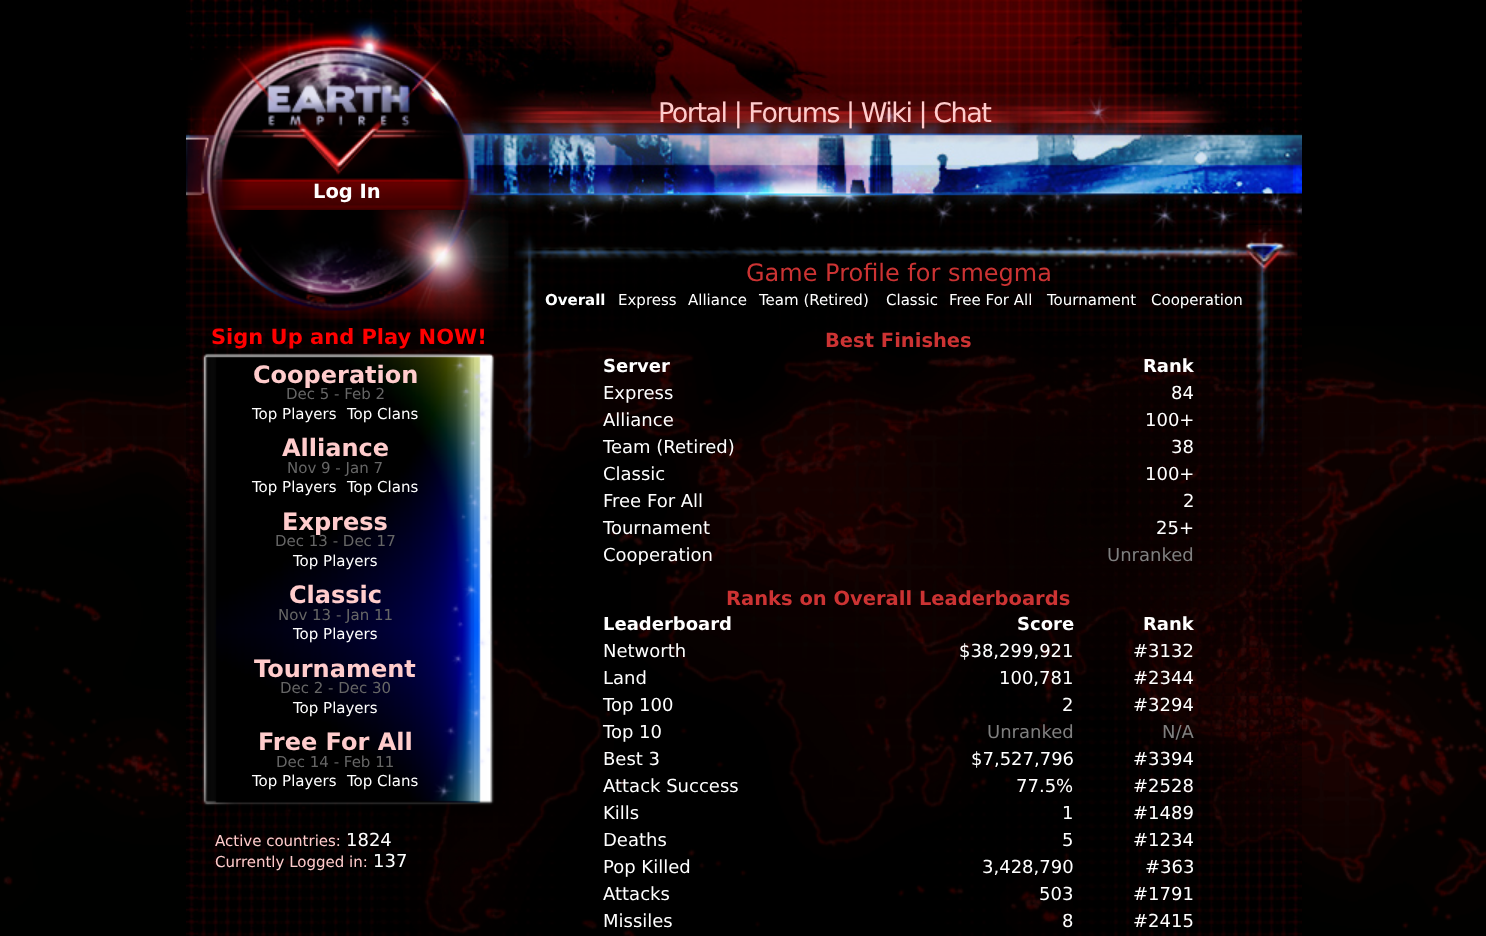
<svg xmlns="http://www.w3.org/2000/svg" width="1486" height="936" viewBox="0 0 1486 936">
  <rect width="100%" height="100%" fill="rgb(0,0,0)"/>
  <image x="0" y="326" width="1486" height="610" href="pic1.png"/>
  <image x="186" y="331" width="1116" height="605" href="pic2.png"/>
  <image x="186" y="0" width="1116" height="332" href="pic3.png"/>
  <text x="658" y="122" font-family="DejaVu Sans" font-size="27" letter-spacing="-1.5" fill="rgb(255,204,204)">Portal | Forums | Wiki | Chat</text>
  <image x="187" y="18" width="322" height="313" href="pic4.png"/>
  <image x="209" y="178" width="275" height="32" href="pic5.png"/>
  <text x="313" y="198" font-family="DejaVu Sans" font-size="19.5" font-weight="bold" fill="rgb(255,255,255)">Log In</text>
  <text x="211" y="344" font-family="DejaVu Sans" font-size="21" font-weight="bold" fill="rgb(255,0,0)">Sign Up and Play NOW!</text>
  <image x="195" y="351" width="314" height="465" href="pic6.png"/>
  <text x="253" y="383" font-family="DejaVu Sans" font-size="24" font-weight="bold" fill="rgb(255,204,204)">Cooperation</text>
  <text x="286" y="399" font-family="DejaVu Sans" font-size="15" fill="rgb(102,102,102)">Dec 5 - Feb 2</text>
  <g font-family="DejaVu Sans" font-size="15" fill="rgb(255,255,255)">
    <text x="252" y="419">Top Players</text>
    <text x="347" y="419">Top Clans</text>
  </g>
  <text x="282" y="456" font-family="DejaVu Sans" font-size="24" font-weight="bold" fill="rgb(255,204,204)">Alliance</text>
  <text x="287" y="473" font-family="DejaVu Sans" font-size="15" fill="rgb(102,102,102)">Nov 9 - Jan 7</text>
  <g font-family="DejaVu Sans" font-size="15" fill="rgb(255,255,255)">
    <text x="252" y="492">Top Players</text>
    <text x="347" y="492">Top Clans</text>
  </g>
  <text x="282" y="530" font-family="DejaVu Sans" font-size="24" font-weight="bold" fill="rgb(255,204,204)">Express</text>
  <text x="275" y="546" font-family="DejaVu Sans" font-size="15" fill="rgb(102,102,102)">Dec 13 - Dec 17</text>
  <text x="293" y="566" font-family="DejaVu Sans" font-size="15" fill="rgb(255,255,255)">Top Players</text>
  <text x="289" y="603" font-family="DejaVu Sans" font-size="24" font-weight="bold" fill="rgb(255,204,204)">Classic</text>
  <text x="278" y="620" font-family="DejaVu Sans" font-size="15" fill="rgb(102,102,102)">Nov 13 - Jan 11</text>
  <text x="293" y="639" font-family="DejaVu Sans" font-size="15" fill="rgb(255,255,255)">Top Players</text>
  <text x="254" y="677" font-family="DejaVu Sans" font-size="24" font-weight="bold" fill="rgb(255,204,204)">Tournament</text>
  <text x="280" y="693" font-family="DejaVu Sans" font-size="15" fill="rgb(102,102,102)">Dec 2 - Dec 30</text>
  <text x="293" y="713" font-family="DejaVu Sans" font-size="15" fill="rgb(255,255,255)">Top Players</text>
  <text x="258" y="750" font-family="DejaVu Sans" font-size="24" font-weight="bold" fill="rgb(255,204,204)">Free For All</text>
  <text x="276" y="767" font-family="DejaVu Sans" font-size="15" fill="rgb(102,102,102)">Dec 14 - Feb 11</text>
  <g font-family="DejaVu Sans" font-size="15" fill="rgb(255,255,255)">
    <text x="252" y="786">Top Players</text>
    <text x="347" y="786">Top Clans</text>
  </g>
  <text x="215" y="846" font-family="DejaVu Sans" font-size="15" fill="rgb(255,204,204)">Active countries:</text>
  <text x="346" y="846" font-family="DejaVu Sans" font-size="18" fill="rgb(255,255,255)">1824</text>
  <text x="215" y="867" font-family="DejaVu Sans" font-size="15" fill="rgb(255,204,204)">Currently Logged in:</text>
  <text x="373" y="867" font-family="DejaVu Sans" font-size="18" fill="rgb(255,255,255)">137</text>
  <image x="514" y="225" width="784" height="233" href="pic7.png"/>
  <text x="746" y="281" font-family="DejaVu Sans" font-size="24" fill="rgb(204,51,51)">Game Profile for smegma</text>
  <text x="545" y="305" font-family="DejaVu Sans" font-size="15" font-weight="bold" fill="rgb(255,255,255)">Overall</text>
  <g font-family="DejaVu Sans" font-size="15" fill="rgb(255,255,255)">
    <text x="618" y="305">Express</text>
    <text x="688" y="305">Alliance</text>
    <text x="759" y="305">Team (Retired)</text>
    <text x="886" y="305">Classic</text>
    <text x="949" y="305">Free For All</text>
    <text x="1047" y="305">Tournament</text>
    <text x="1151" y="305">Cooperation</text>
  </g>
  <text x="825" y="347" font-family="DejaVu Sans" font-size="19.5" font-weight="bold" fill="rgb(204,51,51)">Best Finishes</text>
  <g font-family="DejaVu Sans" font-size="18" font-weight="bold" fill="rgb(255,255,255)">
    <text x="603" y="372">Server</text>
    <text x="1143" y="372">Rank</text>
  </g>
  <g font-family="DejaVu Sans" font-size="18" fill="rgb(255,255,255)">
    <text x="603" y="399">Express</text>
    <text x="1171" y="399">84</text>
    <text x="603" y="426">Alliance</text>
    <text x="1145" y="426">100+</text>
    <text x="603" y="453">Team (Retired)</text>
    <text x="1171" y="453">38</text>
    <text x="603" y="480">Classic</text>
    <text x="1145" y="480">100+</text>
    <text x="603" y="507">Free For All</text>
    <text x="1183" y="507">2</text>
    <text x="603" y="534">Tournament</text>
    <text x="1156" y="534">25+</text>
    <text x="603" y="561">Cooperation</text>
  </g>
  <text x="1107" y="561" font-family="DejaVu Sans" font-size="18" fill="rgb(128,128,128)">Unranked</text>
  <text x="726" y="605" font-family="DejaVu Sans" font-size="19.5" font-weight="bold" fill="rgb(204,51,51)">Ranks on Overall Leaderboards</text>
  <g font-family="DejaVu Sans" font-size="18" font-weight="bold" fill="rgb(255,255,255)">
    <text x="603" y="630">Leaderboard</text>
    <text x="1017" y="630">Score</text>
    <text x="1143" y="630">Rank</text>
  </g>
  <g font-family="DejaVu Sans" font-size="18" fill="rgb(255,255,255)">
    <text x="603" y="657">Networth</text>
    <text x="959" y="657">$38,299,921</text>
    <text x="1133" y="657">#3132</text>
    <text x="603" y="684">Land</text>
    <text x="999" y="684">100,781</text>
    <text x="1133" y="684">#2344</text>
    <text x="603" y="711">Top 100</text>
    <text x="1062" y="711">2</text>
    <text x="1133" y="711">#3294</text>
    <text x="603" y="738">Top 10</text>
  </g>
  <g font-family="DejaVu Sans" font-size="18" fill="rgb(128,128,128)">
    <text x="987" y="738">Unranked</text>
    <text x="1162" y="738">N/A</text>
  </g>
  <g font-family="DejaVu Sans" font-size="18" fill="rgb(255,255,255)">
    <text x="603" y="765">Best 3</text>
    <text x="971" y="765">$7,527,796</text>
    <text x="1133" y="765">#3394</text>
    <text x="603" y="792">Attack Success</text>
    <text x="1016" y="792">77.5%</text>
    <text x="1133" y="792">#2528</text>
    <text x="603" y="819">Kills</text>
    <text x="1062" y="819">1</text>
    <text x="1133" y="819">#1489</text>
    <text x="603" y="846">Deaths</text>
    <text x="1062" y="846">5</text>
    <text x="1133" y="846">#1234</text>
    <text x="603" y="873">Pop Killed</text>
    <text x="982" y="873">3,428,790</text>
    <text x="1145" y="873">#363</text>
    <text x="603" y="900">Attacks</text>
    <text x="1039" y="900">503</text>
    <text x="1133" y="900">#1791</text>
    <text x="603" y="927">Missiles</text>
    <text x="1062" y="927">8</text>
    <text x="1133" y="927">#2415</text>
  </g>
</svg>
